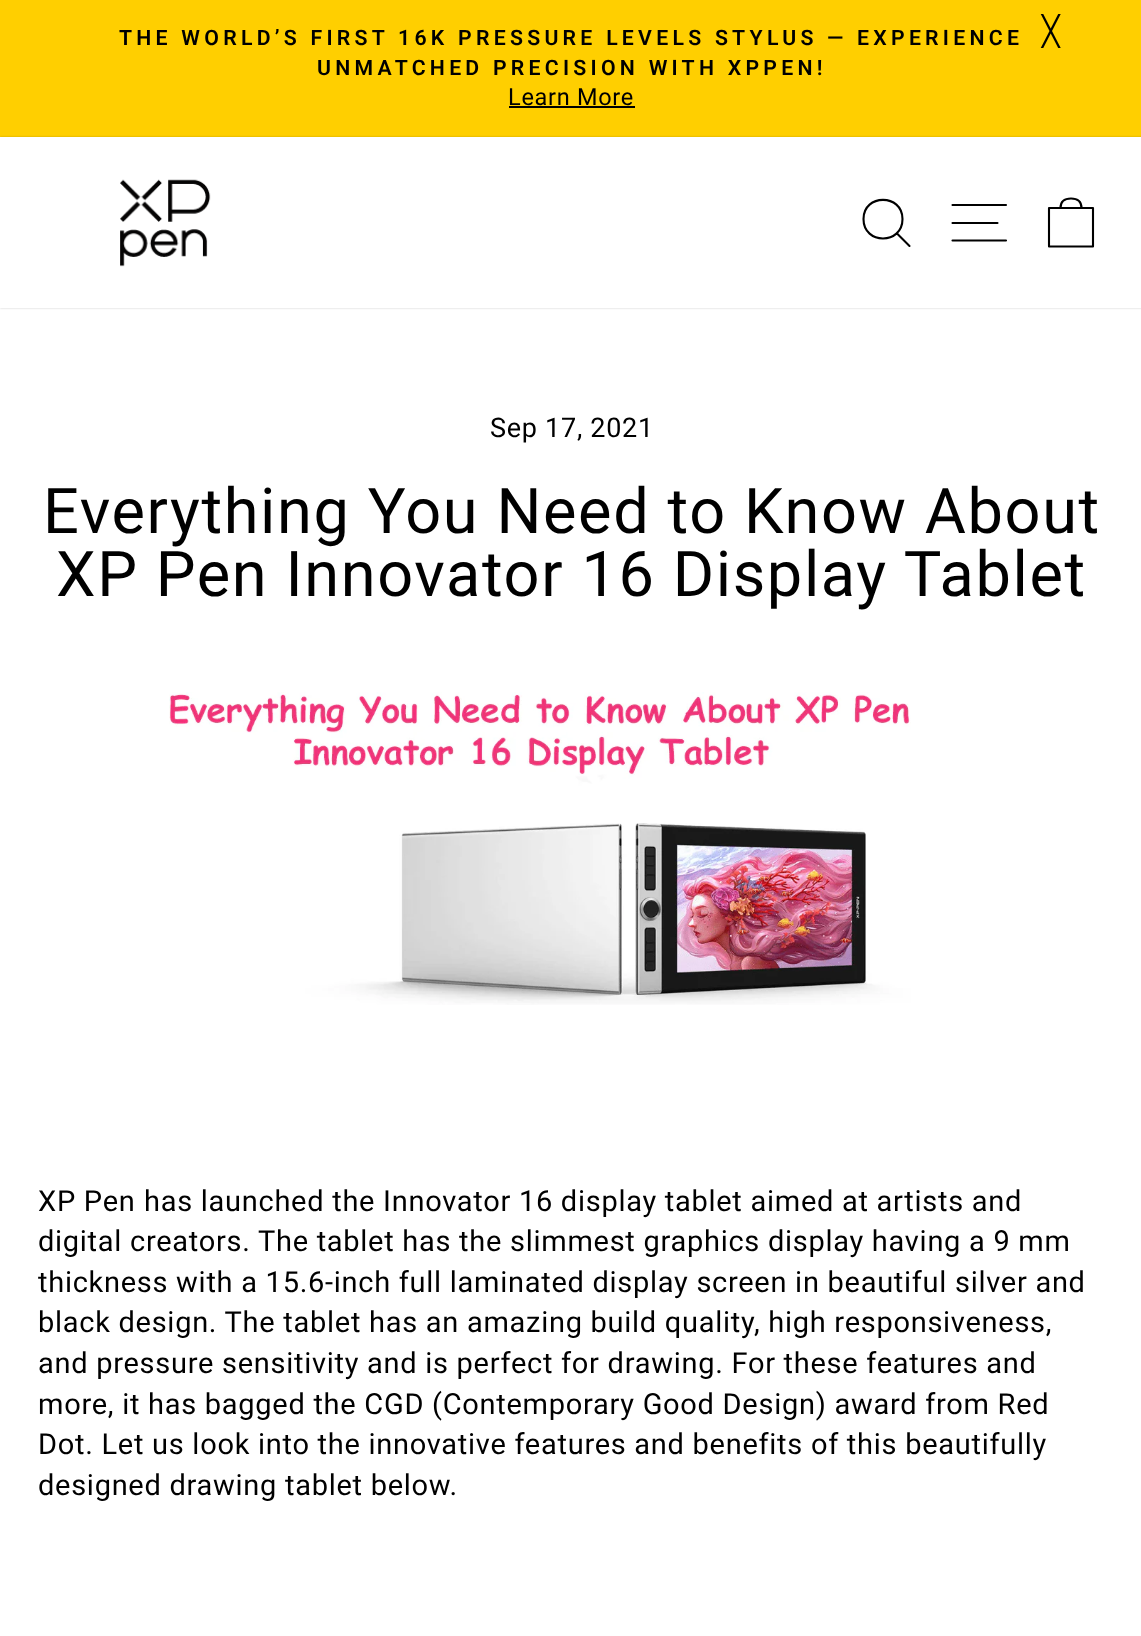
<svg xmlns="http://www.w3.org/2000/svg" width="1141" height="1636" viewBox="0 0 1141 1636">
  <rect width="100%" height="100%" fill="rgb(255,255,255)"/>
  <rect x="0" y="0" width="1141" height="137" fill="rgb(255,207,0)"/>
  <text x="1042" y="41" font-family="DejaVu Sans" font-size="29" letter-spacing="0.72" fill="rgb(0,0,0)">╳</text>
  <g font-family="Roboto" font-size="21.25" font-weight="600" letter-spacing="4.25" fill="rgb(0,0,0)">
    <text x="119" y="45">THE WORLD’S FIRST 16K PRESSURE LEVELS STYLUS</text>
    <text x="827" y="45">— EXPERIENCE</text>
    <text x="317" y="75">UNMATCHED PRECISION WITH XPPEN!</text>
  </g>
  <text x="508" y="105" font-family="Roboto" font-size="23.5" letter-spacing="0.72" fill="rgb(0,0,0)">Learn More</text>
  <rect x="509" y="106" width="126" height="2" fill="rgb(0,0,0)"/>
  <rect x="0" y="137" width="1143" height="171" fill="rgba(0,0,0,0.2)" filter="blur(1px)"/>
  <rect x="0" y="137" width="1141" height="171" fill="rgb(255,255,255)"/>
  <image x="120" y="179" width="91" height="88" href="pic1.png"/>
  <path d="M902.5 219C902.5 245 863.5 245 863.5 219C863.5 193.5 902.5 193.5 902.5 219ZM909.5 246L897 233.5" fill="none" stroke="rgb(0,0,0)" stroke-width="2.1" stroke-linecap="round" stroke-linejoin="round"/>
  <path d="M952.5 205H1006M952.5 223H997.5M952.5 240.5H1006" fill="none" stroke="rgb(0,0,0)" stroke-width="2.1" stroke-linecap="round" stroke-linejoin="round"/>
  <path d="M1049 208H1093V246.5H1049ZM1060.5 208C1060.5 200.5 1065.5 198.5 1071 198.5C1076.5 198.5 1081.5 200.5 1081.5 208" fill="none" stroke="rgb(0,0,0)" stroke-width="2.1" stroke-linecap="round" stroke-linejoin="round"/>
  <text x="490" y="437" font-family="Roboto" font-size="27" letter-spacing="0.72" fill="rgb(0,0,0)">Sep 17, 2021</text>
  <g font-family="Roboto" font-size="63.1" letter-spacing="1.6" fill="rgb(0,0,0)">
    <text x="43" y="533">Everything You Need to Know About</text>
    <text x="56" y="596">XP Pen Innovator 16 Display Tablet</text>
  </g>
  <image x="169" y="692" width="742" height="313" href="pic2.png"/>
  <g font-family="Roboto" font-size="29" letter-spacing="0.72" fill="rgb(0,0,0)">
    <text x="38" y="1211">XP Pen</text>
    <text x="144" y="1211">has launched the Innovator 16 display tablet aimed at artists and</text>
    <text>
      <tspan x="38" y="1251">digital creators. The tablet has the slimmest graphics display having a 9 mm</tspan>
      <tspan x="38" y="1292">thickness with a 15.6-inch full laminated display screen in beautiful silver and</tspan>
      <tspan x="38" y="1332">black design. The tablet has an amazing build quality, high responsiveness,</tspan>
      <tspan x="38" y="1373">and pressure sensitivity and is perfect for drawing. For these features and</tspan>
      <tspan x="38" y="1414">more, it has bagged the CGD (Contemporary Good Design) award from Red</tspan>
      <tspan x="38" y="1454">Dot. Let us look into the innovative features and benefits of this beautifully</tspan>
      <tspan x="38" y="1495">designed drawing tablet below.</tspan>
    </text>
  </g>
</svg>
